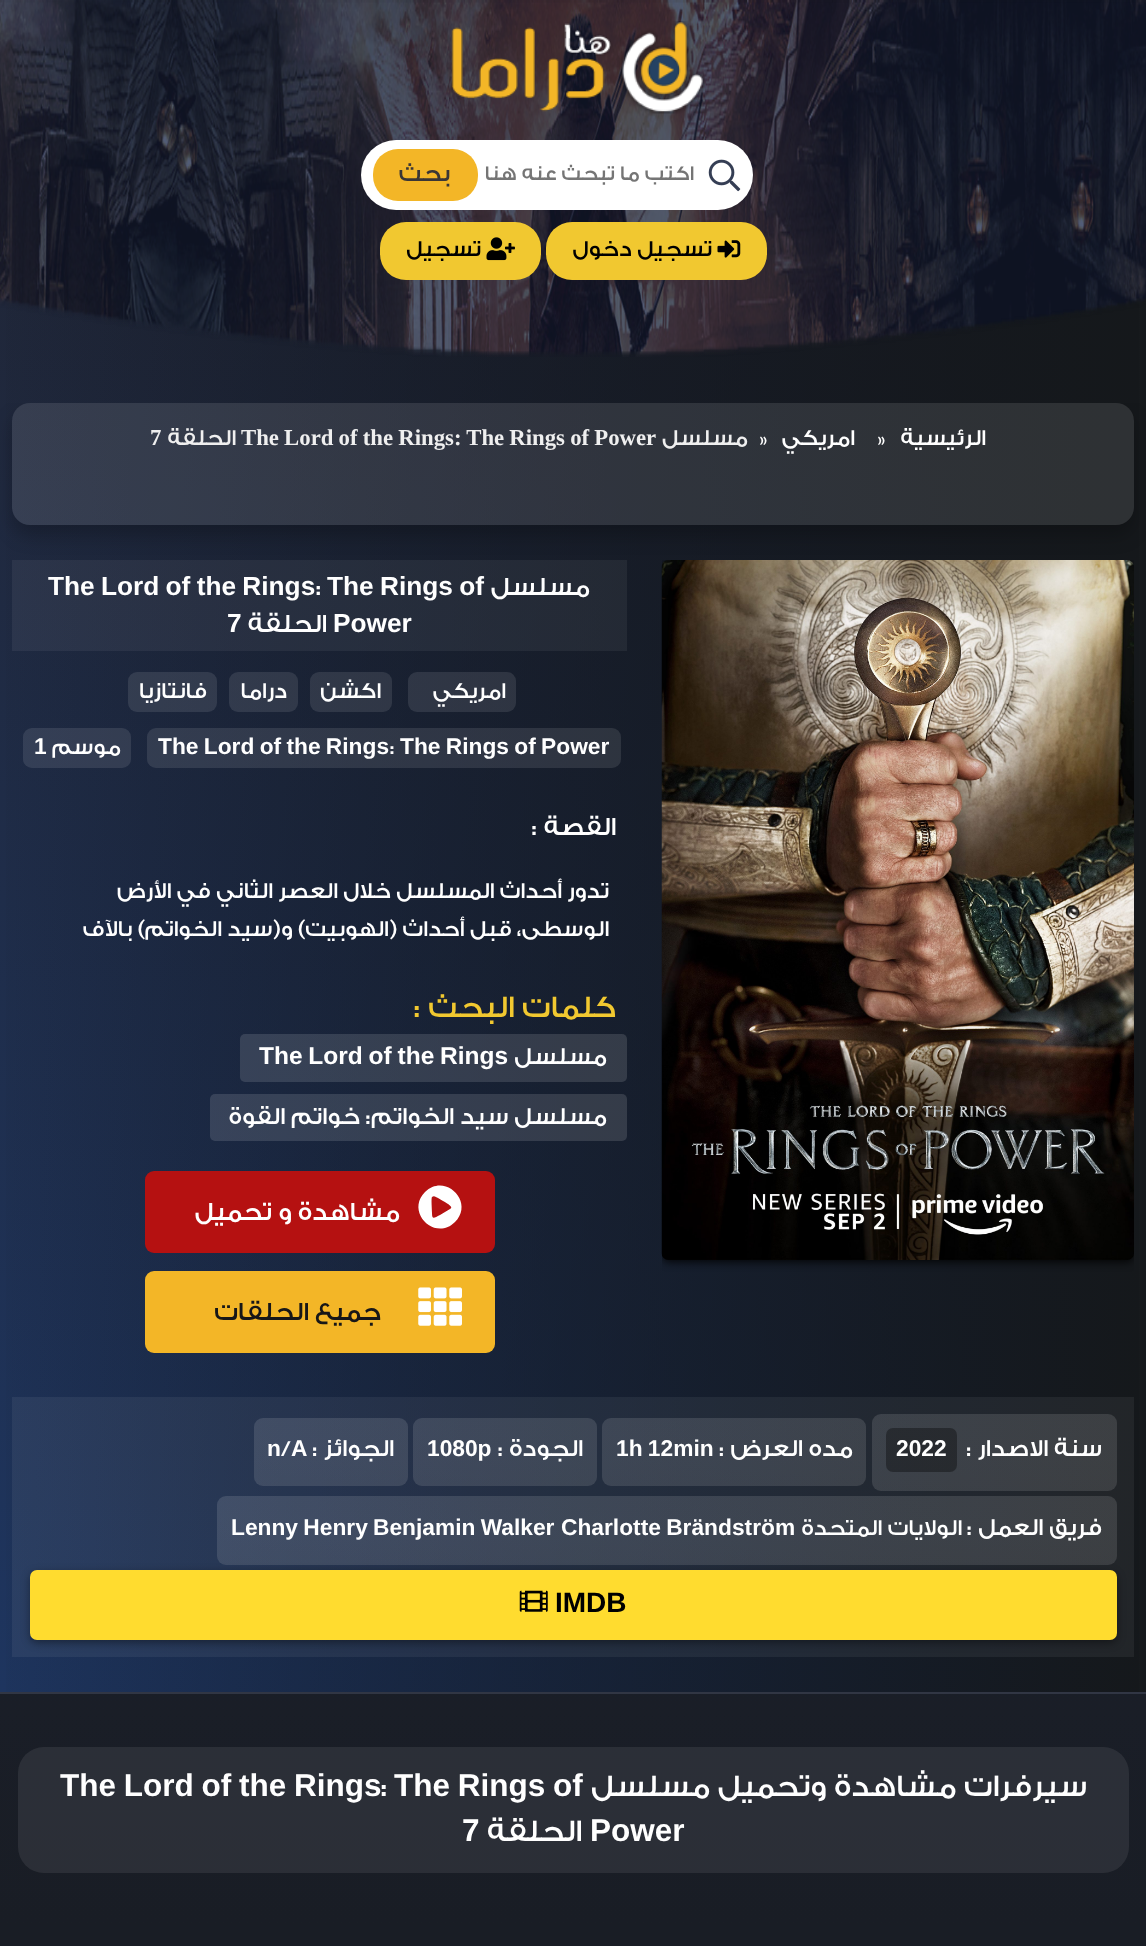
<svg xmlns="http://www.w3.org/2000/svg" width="1146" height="1946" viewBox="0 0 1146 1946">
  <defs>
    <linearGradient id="g1" gradientUnits="userSpaceOnUse" x1="573" y1="0" x2="573" y2="1692"><stop offset="0" stop-color="rgb(32,36,50)"/><stop offset="1" stop-color="rgb(30,53,95)"/></linearGradient>
    <linearGradient id="g2" gradientUnits="userSpaceOnUse" x1="0" y1="846" x2="1146" y2="846"><stop offset="0" stop-color="rgb(9,9,9)" stop-opacity="0.02"/><stop offset="1" stop-color="rgb(21,24,27)"/></linearGradient>
    <clipPath id="clip1"><rect x="483" y="159" width="212" height="30"/></clipPath>
    <clipPath id="clip2"><rect x="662" y="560" width="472" height="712"/></clipPath>
    <clipPath id="clip3"><rect x="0" y="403" width="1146" height="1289"/></clipPath>
    <clipPath id="clip4"><path d="M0 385H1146V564H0ZM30 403H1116C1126 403 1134 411 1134 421V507C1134 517 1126 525 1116 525H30C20 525 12 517 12 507V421C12 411 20 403 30 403Z" clip-rule="evenodd"/></clipPath>
    <linearGradient id="g3" gradientUnits="userSpaceOnUse" x1="994" y1="1414" x2="994" y2="1491"><stop offset="0" stop-color="rgb(255,255,255)" stop-opacity="0.12"/><stop offset="1" stop-color="rgb(204,204,204)" stop-opacity="0.15"/></linearGradient>
    <linearGradient id="g4" gradientUnits="userSpaceOnUse" x1="734" y1="1418" x2="734" y2="1486"><stop offset="0" stop-color="rgb(255,255,255)" stop-opacity="0.12"/><stop offset="1" stop-color="rgb(204,204,204)" stop-opacity="0.15"/></linearGradient>
    <linearGradient id="g5" gradientUnits="userSpaceOnUse" x1="505" y1="1418" x2="505" y2="1486"><stop offset="0" stop-color="rgb(255,255,255)" stop-opacity="0.12"/><stop offset="1" stop-color="rgb(204,204,204)" stop-opacity="0.15"/></linearGradient>
    <linearGradient id="g6" gradientUnits="userSpaceOnUse" x1="331" y1="1418" x2="331" y2="1486"><stop offset="0" stop-color="rgb(255,255,255)" stop-opacity="0.12"/><stop offset="1" stop-color="rgb(204,204,204)" stop-opacity="0.15"/></linearGradient>
    <linearGradient id="g7" gradientUnits="userSpaceOnUse" x1="667" y1="1496" x2="667" y2="1565"><stop offset="0" stop-color="rgb(255,255,255)" stop-opacity="0.12"/><stop offset="1" stop-color="rgb(204,204,204)" stop-opacity="0.15"/></linearGradient>
    <linearGradient id="g8" gradientUnits="userSpaceOnUse" x1="573" y1="1946" x2="573" y2="0"><stop offset="0.01" stop-color="rgb(25,29,37)"/><stop offset="1" stop-color="rgb(33,38,55)"/></linearGradient>
  </defs>
  <rect width="100%" height="100%" fill="rgb(255,255,255)"/>
  <rect x="0" y="1692" width="1146" height="2" fill="rgb(49,54,68)"/>
  <rect x="0" y="0" width="1139" height="1692" fill="url(#g1)"/>
  <rect x="6" y="0" width="1140" height="1692" fill="url(#g2)"/>
  <image x="0" y="0" width="1146" height="357" href="pic1.png"/>
  <image x="451" y="21" width="254" height="93" href="pic2.png"/>
  <rect x="361" y="140" width="392" height="70" rx="35" fill="rgb(255,255,255)"/>
  <image x="708" y="159" width="33" height="33" href="pic3.png"/>
  <g clip-path="url(#clip1)">
    <text x="694" y="180" font-family="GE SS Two" font-size="21" font-weight="500" direction="rtl" fill="rgb(117,117,117)">اكتب ما تبحث عنه هنا ...</text>
  </g>
  <rect x="373" y="149" width="105" height="52" rx="25" fill="rgb(243,182,39)"/>
  <text x="450" y="181" font-family="GE SS Two" font-size="24.5" font-weight="500" direction="rtl" fill="rgb(58,54,54)">بحث</text>
  <rect x="546" y="222" width="221" height="58" rx="26" fill="rgb(241,200,48)"/>
  <image x="717" y="240" width="24" height="18" href="pic4.png"/>
  <text x="712" y="256" font-family="GE SS Two" font-size="22.75" font-weight="500" direction="rtl" fill="rgb(0,0,0)">تسجيل دخول</text>
  <rect x="380" y="222" width="161" height="58" rx="26" fill="rgb(241,200,48)"/>
  <image x="486" y="237" width="29" height="24" href="pic5.png"/>
  <text x="481" y="256" font-family="GE SS Two" font-size="22.75" font-weight="500" direction="rtl" fill="rgb(0,0,0)">تسجيل</text>
  <g clip-path="url(#clip2)">
    <rect x="662" y="562" width="472" height="700" rx="7" fill="rgba(0,0,0,0.84)" filter="blur(4.5px)"/>
  </g>
  <image x="661" y="560" width="473" height="700" href="pic6.png"/>
  <rect x="12" y="560" width="615" height="91" fill="rgba(255,255,255,0.06)"/>
  <g clip-path="url(#clip3)">
    <g clip-path="url(#clip4)">
      <rect x="12" y="413" width="1122" height="123" rx="18" fill="rgba(0,0,0,0.22)" filter="blur(9px)"/>
    </g>
  </g>
  <rect x="12" y="403" width="1122" height="122" rx="18" fill="rgba(255,255,255,0.11)"/>
  <text x="986" y="445" font-family="GE SS Two" font-size="22.75" font-weight="500" direction="rtl" fill="rgb(255,255,255)">الرئيسية</text>
  <text x="876" y="445" font-family="GE SS Two" font-size="22.75" font-weight="500" fill="rgb(255,255,255)">»</text>
  <text x="855" y="445" font-family="GE SS Two" font-size="22.75" font-weight="500" direction="rtl" fill="rgb(255,255,255)">امريكي</text>
  <text x="758" y="445" font-family="GE SS Two" font-size="22.75" font-weight="500" fill="rgb(255,255,255)">»</text>
  <text x="748" y="445" font-family="GE SS Two" font-size="22.75" font-weight="500" direction="rtl" fill="rgb(239,239,239)">مسلسل</text>
  <text x="241" y="445" word-spacing="-0.5" font-family="Liberation Serif" font-size="22.75" font-weight="bold" fill="rgb(239,239,239)">The Lord of the Rings: The Rings of Power</text>
  <text x="236" y="445" font-family="GE SS Two" font-size="22.75" font-weight="500" direction="rtl" fill="rgb(239,239,239)">الحلقة</text>
  <text x="150" y="445" font-family="Liberation Serif" font-size="22.75" font-weight="bold" fill="rgb(239,239,239)">7</text>
  <text x="590" y="595" font-family="GE SS Two" font-size="26.25" font-weight="500" direction="rtl" fill="rgb(255,255,255)">مسلسل</text>
  <text x="327" y="595" word-spacing="-1" font-family="Liberation Sans" font-size="26.25" font-weight="bold" fill="rgb(255,255,255)">The Rings of</text>
  <text x="316" y="595" font-family="GE SS Two" font-size="26.25" font-weight="500" fill="rgb(255,255,255)">:</text>
  <g font-family="Liberation Sans" font-size="26.25" font-weight="bold" fill="rgb(255,255,255)">
    <text x="48" y="595" word-spacing="-1">The Lord of the Rings</text>
    <text x="333" y="632">Power</text>
  </g>
  <text x="327" y="632" font-family="GE SS Two" font-size="26.25" font-weight="500" direction="rtl" fill="rgb(255,255,255)">الحلقة</text>
  <text x="227" y="632" font-family="Liberation Sans" font-size="26.25" font-weight="bold" fill="rgb(255,255,255)">7</text>
  <rect x="408" y="672" width="108" height="40" rx="9" fill="rgba(255,255,255,0.1)"/>
  <text x="506" y="698" font-family="GE SS Two" font-size="22.75" font-weight="500" direction="rtl" fill="rgb(255,255,255)">امريكي</text>
  <rect x="310" y="672" width="82" height="40" rx="9" fill="rgba(255,255,255,0.1)"/>
  <text x="381" y="698" font-family="GE SS Two" font-size="22.75" font-weight="500" direction="rtl" fill="rgb(255,255,255)">اكشن</text>
  <rect x="229" y="672" width="69" height="40" rx="9" fill="rgba(255,255,255,0.1)"/>
  <text x="287" y="698" font-family="GE SS Two" font-size="22.75" font-weight="500" direction="rtl" fill="rgb(255,255,255)">دراما</text>
  <rect x="128" y="672" width="89" height="40" rx="9" fill="rgba(255,255,255,0.1)"/>
  <text x="207" y="698" font-family="GE SS Two" font-size="22.75" font-weight="500" direction="rtl" fill="rgb(255,255,255)">فانتازيا</text>
  <rect x="147" y="728" width="474" height="40" rx="9" fill="rgba(255,255,255,0.1)"/>
  <text x="400" y="754" word-spacing="-1" font-family="Liberation Sans" font-size="22.75" font-weight="bold" fill="rgb(255,255,255)">The Rings of Power</text>
  <text x="390" y="754" font-family="GE SS Two" font-size="22.75" font-weight="500" fill="rgb(255,255,255)">:</text>
  <text x="158" y="754" word-spacing="-1" font-family="Liberation Sans" font-size="22.75" font-weight="bold" fill="rgb(255,255,255)">The Lord of the Rings</text>
  <rect x="23" y="728" width="108" height="40" rx="9" fill="rgba(255,255,255,0.1)"/>
  <text x="121" y="754" font-family="GE SS Two" font-size="22.75" font-weight="500" direction="rtl" fill="rgb(255,255,255)">موسم</text>
  <text x="34" y="754" font-family="Liberation Sans" font-size="22.75" font-weight="bold" fill="rgb(255,255,255)">1</text>
  <text x="616" y="835" font-family="GE SS Two" font-size="26.25" font-weight="500" direction="rtl" fill="rgb(255,255,255)">القصة :</text>
  <g font-family="GE SS Two" font-size="22.75" font-weight="500" direction="rtl" fill="rgb(255,255,255)">
    <text>
      <tspan x="609" y="898">تدور أحداث المسلسل خلال العصر الثاني في اﻷرض</tspan>
      <tspan x="609" y="936">الوسطى، قبل أحداث (الهوبيت) و(سيد الخواتم) باﻵف</tspan>
    </text>
  </g>
  <text x="616" y="1017" font-family="GE SS Two" font-size="31.5" font-weight="500" direction="rtl" fill="rgb(241,200,48)">كلمات البحث :</text>
  <rect x="240" y="1034" width="387" height="48" rx="5" fill="rgba(255,255,255,0.13)"/>
  <text x="607" y="1064" font-family="GE SS Two" font-size="24.5" font-weight="500" direction="rtl" fill="rgb(255,255,255)">مسلسل</text>
  <text x="259" y="1064" word-spacing="-1" font-family="Liberation Sans" font-size="24.5" font-weight="bold" fill="rgb(255,255,255)">The Lord of the Rings</text>
  <rect x="210" y="1094" width="417" height="47" rx="5" fill="rgba(255,255,255,0.13)"/>
  <text x="607" y="1124" font-family="GE SS Two" font-size="24.5" font-weight="500" direction="rtl" fill="rgb(255,255,255)">مسلسل سيد الخواتم: خواتم القوة</text>
  <rect x="145" y="1171" width="350" height="82" rx="9" fill="rgb(181,17,17)"/>
  <path d="M425 1192C445 1172 475 1202 455 1222C435 1242 405 1212 425 1192ZM450 1209C454 1207 448 1204 443 1201L438 1198C436 1197 434 1195 432 1197C431 1198 432 1210 432 1213C432 1220 434 1218 440 1215Z" fill="rgb(255,255,255)"/>
  <text x="400" y="1220" font-family="GE SS Two" font-size="26.25" font-weight="500" direction="rtl" fill="rgb(255,255,255)">مشاهدة و تحميل</text>
  <rect x="145" y="1271" width="350" height="82" rx="9" fill="rgb(243,182,39)"/>
  <image x="418" y="1287" width="44" height="39" href="pic7.png"/>
  <text x="381" y="1320" font-family="GE SS Two" font-size="26.25" font-weight="500" direction="rtl" fill="rgb(23,23,24)">جميع الحلقات</text>
  <rect x="12" y="1397" width="1122" height="260" fill="rgba(255,255,255,0.06)"/>
  <rect x="872" y="1414" width="245" height="77" rx="9" fill="url(#g3)"/>
  <text x="1102" y="1456" font-family="GE SS Two" font-size="24.5" font-weight="500" direction="rtl" fill="rgb(255,255,255)">سنة الاصدار :</text>
  <rect x="886" y="1428" width="71" height="44" rx="7" fill="rgba(0,0,0,0.34)"/>
  <text x="896" y="1456" font-family="Liberation Sans" font-size="22.75" font-weight="bold" fill="rgb(255,255,255)">2022</text>
  <rect x="602" y="1418" width="264" height="68" rx="9" fill="url(#g4)"/>
  <text x="853" y="1456" font-family="GE SS Two" font-size="24.5" font-weight="500" direction="rtl" fill="rgb(255,255,255)">مده العرض :</text>
  <text x="616" y="1456" word-spacing="-1" font-family="Liberation Sans" font-size="22.75" font-weight="bold" fill="rgb(255,255,255)">1h 12min</text>
  <rect x="413" y="1418" width="184" height="68" rx="9" fill="url(#g5)"/>
  <text x="583" y="1456" font-family="GE SS Two" font-size="24.5" font-weight="500" direction="rtl" fill="rgb(255,255,255)">الجودة :</text>
  <text x="427" y="1456" font-family="Liberation Sans" font-size="22.75" font-weight="bold" fill="rgb(255,255,255)">1080p</text>
  <rect x="254" y="1418" width="154" height="68" rx="9" fill="url(#g6)"/>
  <text x="394" y="1456" font-family="GE SS Two" font-size="24.5" font-weight="500" direction="rtl" fill="rgb(255,255,255)">الجوائز :</text>
  <text x="291" y="1456" font-family="Liberation Sans" font-size="22.75" font-weight="bold" fill="rgb(255,255,255)">A</text>
  <text x="281" y="1456" font-family="GE SS Two" font-size="22.75" font-weight="500" fill="rgb(255,255,255)">/</text>
  <text x="267" y="1456" font-family="Liberation Sans" font-size="22.75" font-weight="bold" fill="rgb(255,255,255)">n</text>
  <rect x="30" y="1573" width="1087" height="70" rx="7" fill="rgba(0,0,0,0.39)" filter="blur(4.5px)"/>
  <rect x="217" y="1496" width="900" height="69" rx="9" fill="url(#g7)"/>
  <text x="1102" y="1535" font-family="GE SS Two" font-size="24.5" font-weight="500" direction="rtl" fill="rgb(255,255,255)">فريق العمل :</text>
  <text x="962" y="1535" font-family="GE SS Two" font-size="22.75" font-weight="500" direction="rtl" fill="rgb(255,255,255)">الولايات المتحدة</text>
  <g font-family="Liberation Sans" font-size="22.75" font-weight="bold" fill="rgb(255,255,255)">
    <text x="561" y="1535" word-spacing="-1">Charlotte Brändström</text>
    <text x="373" y="1535" word-spacing="-1">Benjamin Walker</text>
    <text x="231" y="1535" word-spacing="-1">Lenny Henry</text>
  </g>
  <rect x="30" y="1570" width="1087" height="70" rx="7" fill="rgb(255,220,47)"/>
  <text x="555" y="1612" font-family="Liberation Sans" font-size="28" font-weight="bold" fill="rgb(0,0,0)">IMDB</text>
  <image x="519" y="1590" width="29" height="22" href="pic8.png"/>
  <rect x="0" y="1694" width="1146" height="252" fill="url(#g8)"/>
  <rect x="18" y="1747" width="1111" height="126" rx="26" fill="rgba(255,255,255,0.08)"/>
  <text x="1087" y="1796" font-family="GE SS Two" font-size="31.5" font-weight="500" direction="rtl" fill="rgb(255,255,255)">سيرفرات مشاهدة وتحميل مسلسل</text>
  <text x="394" y="1796" word-spacing="-1" font-family="Liberation Sans" font-size="31.5" font-weight="bold" fill="rgb(255,255,255)">The Rings of</text>
  <text x="381" y="1796" font-family="GE SS Two" font-size="31.5" font-weight="500" fill="rgb(255,255,255)">:</text>
  <g font-family="Liberation Sans" font-size="31.5" font-weight="bold" fill="rgb(255,255,255)">
    <text x="60" y="1796" word-spacing="-1">The Lord of the Rings</text>
    <text x="590" y="1841">Power</text>
  </g>
  <text x="582" y="1841" font-family="GE SS Two" font-size="31.5" font-weight="500" direction="rtl" fill="rgb(255,255,255)">الحلقة</text>
  <text x="462" y="1841" font-family="Liberation Sans" font-size="31.5" font-weight="bold" fill="rgb(255,255,255)">7</text>
</svg>
